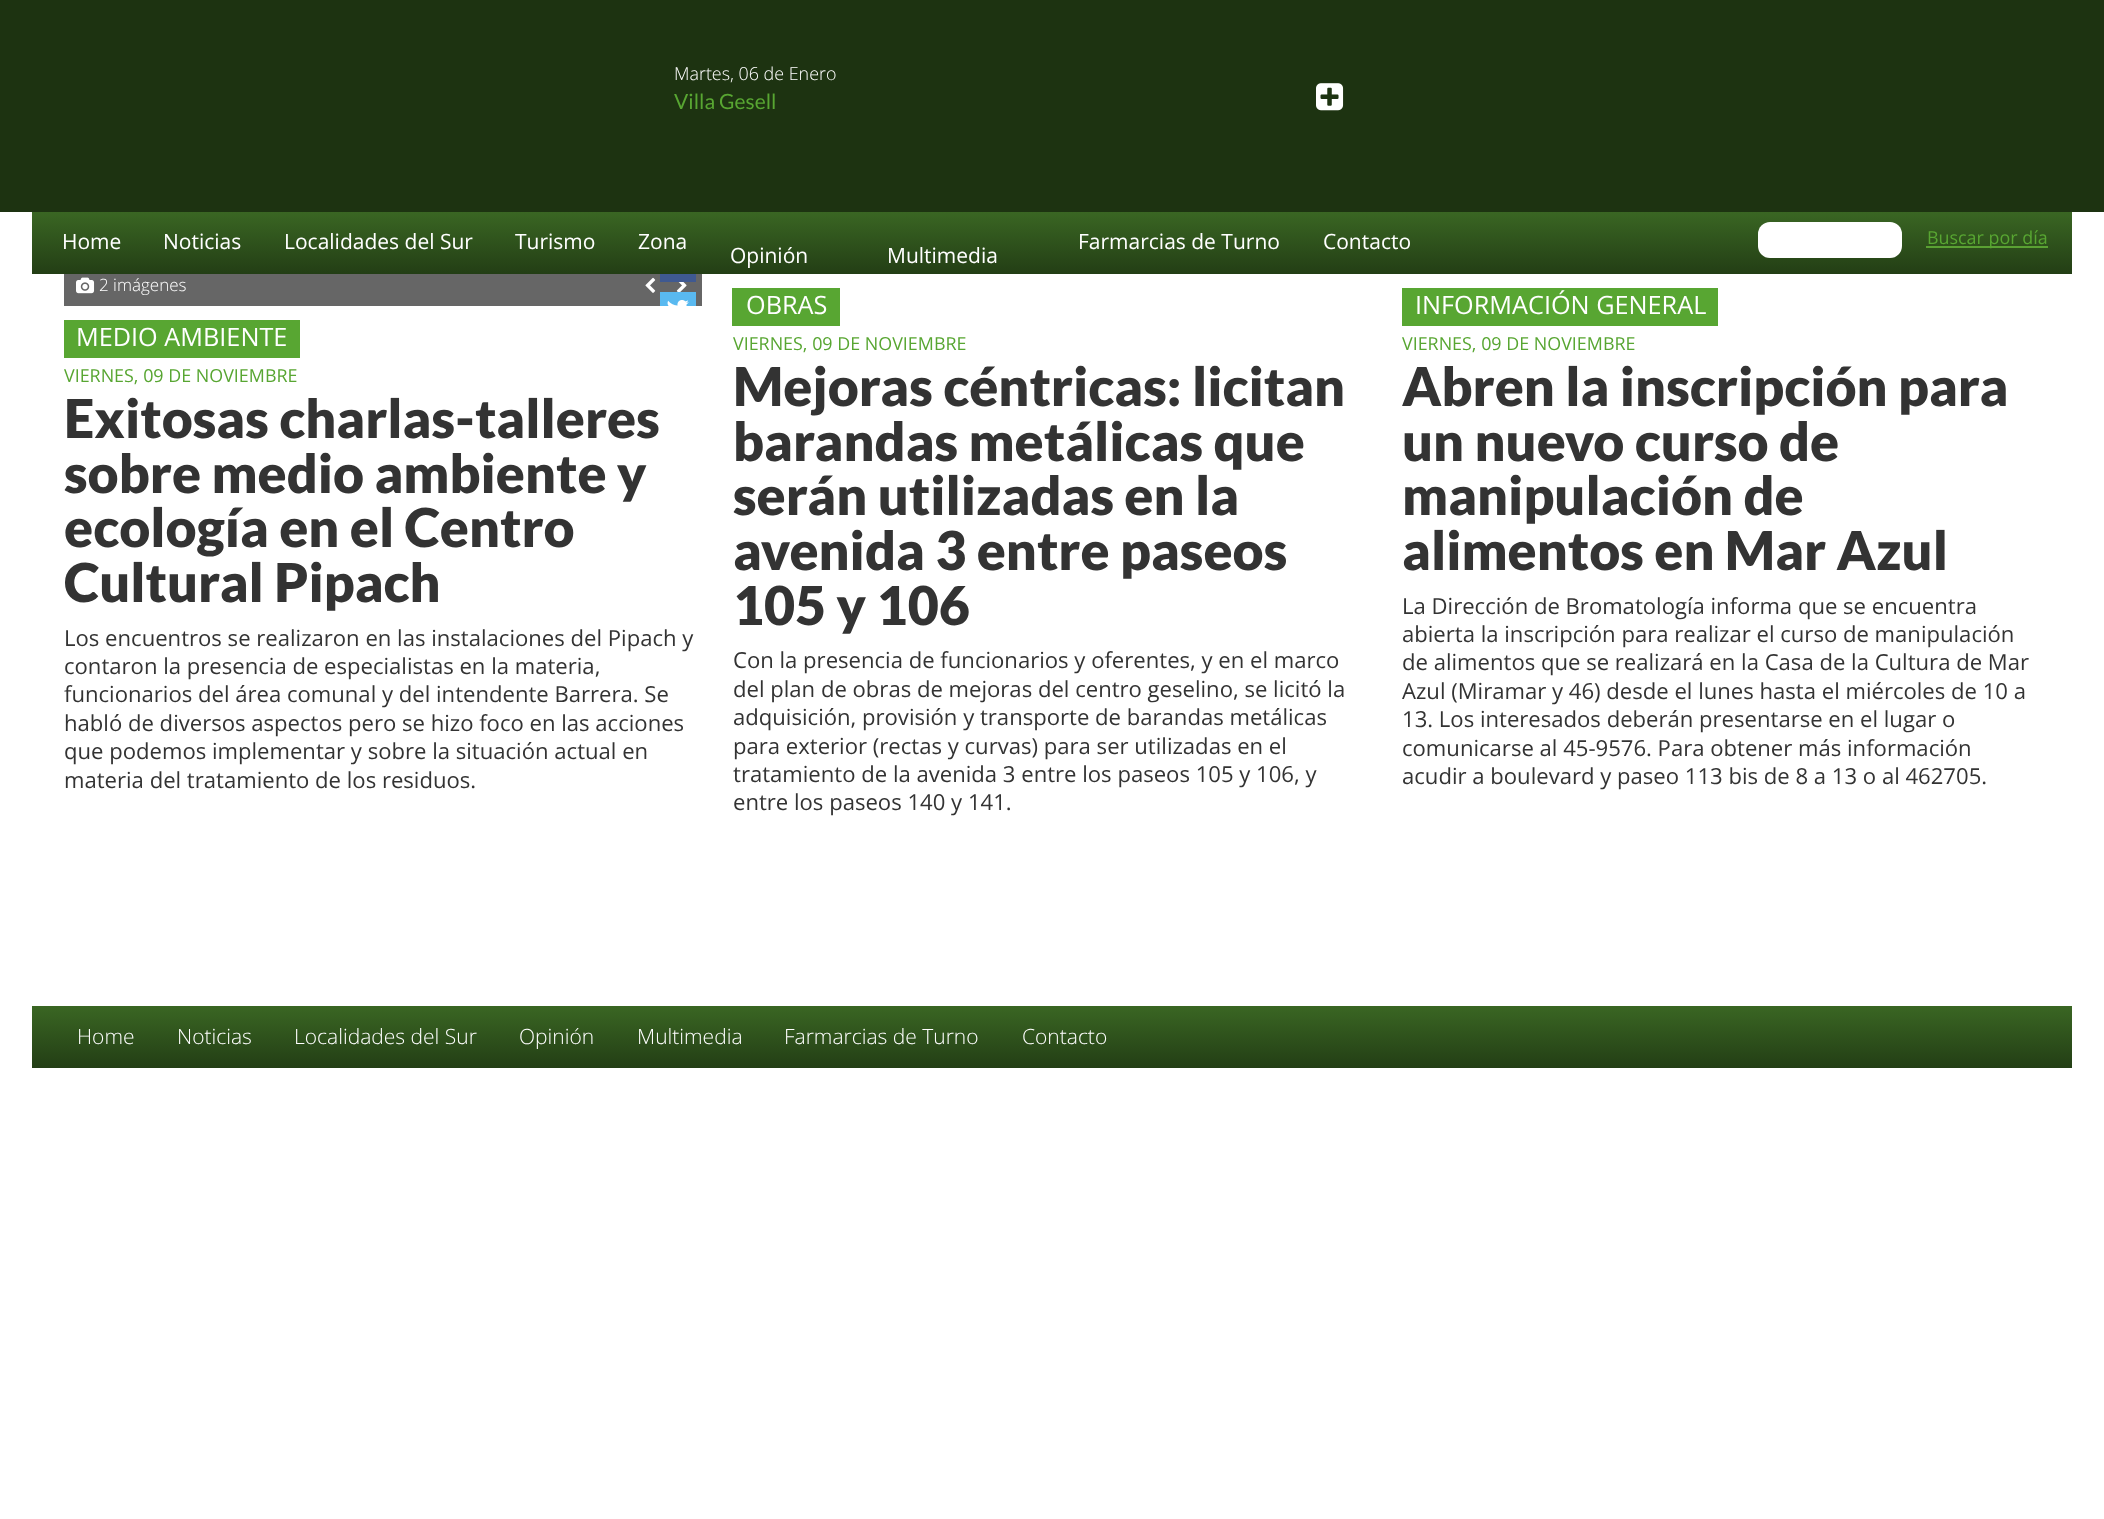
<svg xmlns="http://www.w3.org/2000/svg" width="2104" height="1519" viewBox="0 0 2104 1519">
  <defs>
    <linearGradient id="g1" gradientUnits="userSpaceOnUse" x1="1052" y1="274" x2="1052" y2="212"><stop offset="0" stop-color="rgb(35,62,21)"/><stop offset="1" stop-color="rgb(58,102,35)"/></linearGradient>
    <linearGradient id="g2" gradientUnits="userSpaceOnUse" x1="1052" y1="1068" x2="1052" y2="1006"><stop offset="0" stop-color="rgb(35,62,21)"/><stop offset="1" stop-color="rgb(58,102,35)"/></linearGradient>
  </defs>
  <rect width="100%" height="100%" fill="rgb(255,255,255)"/>
  <rect x="0" y="0" width="2104" height="212" fill="rgb(29,51,17)"/>
  <text x="674" y="80" font-family="Open Sans" font-size="17.9" font-weight="300" fill="rgb(255,255,255)">Martes, 06 de Enero</text>
  <text x="674" y="109" font-family="Lato" font-size="21" fill="rgb(88,166,50)">Villa Gesell</text>
  <image x="1316" y="83" width="28" height="28" href="pic1.png"/>
  <rect x="32" y="212" width="2040" height="62" fill="url(#g1)"/>
  <g font-family="Open Sans" font-size="21" fill="rgb(255,255,255)">
    <text x="62" y="249">Home</text>
    <text x="163" y="249">Noticias</text>
    <text x="284" y="249">Localidades del Sur</text>
    <text x="515" y="249">Turismo</text>
    <text x="638" y="249">Zona</text>
    <text x="1078" y="249">Farmarcias de Turno</text>
    <text x="1323" y="249">Contacto</text>
    <text x="730" y="263">Opinión</text>
    <text x="887" y="263">Multimedia</text>
  </g>
  <rect x="1758" y="222" width="144" height="36" rx="12" fill="rgb(255,255,255)"/>
  <rect x="1926" y="246" width="122" height="2" fill="rgb(90,161,51)"/>
  <text x="1927" y="244" font-family="Open Sans" font-size="17.9" fill="rgb(88,166,50)">Buscar por día</text>
  <rect x="64" y="274" width="638" height="32" fill="rgb(102,102,102)"/>
  <image x="76" y="277" width="19" height="17" href="pic2.png"/>
  <text x="99" y="291" font-family="Open Sans" font-size="17" font-weight="300" fill="rgb(255,255,255)">2 imágenes</text>
  <image x="645" y="277" width="11" height="16" href="pic3.png"/>
  <image x="676" y="282" width="11" height="10" href="pic4.png"/>
  <rect x="660" y="274" width="36" height="8" fill="rgb(63,89,145)"/>
  <rect x="660" y="292" width="36" height="14" fill="rgb(89,185,240)"/>
  <image x="667" y="300" width="22" height="6" href="pic5.png"/>
  <rect x="64" y="320" width="236" height="38" fill="rgb(88,166,50)"/>
  <text x="76" y="346" font-family="Open Sans" font-size="25.25" fill="rgb(255,255,255)">MEDIO AMBIENTE</text>
  <text x="64" y="382" font-family="Open Sans" font-size="17.9" fill="rgb(88,166,50)">VIERNES, 09 DE NOVIEMBRE</text>
  <g font-family="Lato" font-size="53.6" font-weight="900" fill="rgb(51,51,51)">
    <text>
      <tspan x="64" y="438">Exitosas charlas-talleres</tspan>
      <tspan x="64" y="493">sobre medio ambiente y</tspan>
      <tspan x="64" y="547">ecología en el Centro</tspan>
      <tspan x="64" y="602">Cultural Pipach</tspan>
    </text>
  </g>
  <g font-family="Open Sans" font-size="22.1" fill="rgb(51,51,51)">
    <text>
      <tspan x="64" y="646">Los encuentros se realizaron en las instalaciones del Pipach y</tspan>
      <tspan x="64" y="674">contaron la presencia de especialistas en la materia,</tspan>
      <tspan x="64" y="702">funcionarios del área comunal y del intendente Barrera. Se</tspan>
      <tspan x="64" y="731">habló de diversos aspectos pero se hizo foco en las acciones</tspan>
      <tspan x="64" y="759">que podemos implementar y sobre la situación actual en</tspan>
      <tspan x="64" y="788">materia del tratamiento de los residuos.</tspan>
    </text>
  </g>
  <rect x="732" y="288" width="108" height="38" fill="rgb(88,166,50)"/>
  <text x="746" y="314" font-family="Open Sans" font-size="25.25" fill="rgb(255,255,255)">OBRAS</text>
  <text x="733" y="350" font-family="Open Sans" font-size="17.9" fill="rgb(88,166,50)">VIERNES, 09 DE NOVIEMBRE</text>
  <g font-family="Lato" font-size="53.6" font-weight="900" fill="rgb(51,51,51)">
    <text>
      <tspan x="733" y="406">Mejoras céntricas: licitan</tspan>
      <tspan x="733" y="461">barandas metálicas que</tspan>
      <tspan x="733" y="515">serán utilizadas en la</tspan>
      <tspan x="733" y="570">avenida 3 entre paseos</tspan>
      <tspan x="733" y="625">105 y 106</tspan>
    </text>
  </g>
  <g font-family="Open Sans" font-size="22.1" fill="rgb(51,51,51)">
    <text>
      <tspan x="733" y="668">Con la presencia de funcionarios y oferentes, y en el marco</tspan>
      <tspan x="733" y="697">del plan de obras de mejoras del centro geselino, se licitó la</tspan>
      <tspan x="733" y="725">adquisición, provisión y transporte de barandas metálicas</tspan>
      <tspan x="733" y="754">para exterior (rectas y curvas) para ser utilizadas en el</tspan>
      <tspan x="733" y="782">tratamiento de la avenida 3 entre los paseos 105 y 106, y</tspan>
      <tspan x="733" y="810">entre los paseos 140 y 141.</tspan>
    </text>
  </g>
  <rect x="1402" y="288" width="316" height="38" fill="rgb(88,166,50)"/>
  <text x="1415" y="314" font-family="Open Sans" font-size="25.25" fill="rgb(255,255,255)">INFORMACIÓN GENERAL</text>
  <text x="1402" y="350" font-family="Open Sans" font-size="17.9" fill="rgb(88,166,50)">VIERNES, 09 DE NOVIEMBRE</text>
  <g font-family="Lato" font-size="53.6" font-weight="900" fill="rgb(51,51,51)">
    <text>
      <tspan x="1402" y="406">Abren la inscripción para</tspan>
      <tspan x="1402" y="461">un nuevo curso de</tspan>
      <tspan x="1402" y="515">manipulación de</tspan>
      <tspan x="1402" y="570">alimentos en Mar Azul</tspan>
    </text>
  </g>
  <g font-family="Open Sans" font-size="22.1" fill="rgb(51,51,51)">
    <text>
      <tspan x="1402" y="614">La Dirección de Bromatología informa que se encuentra</tspan>
      <tspan x="1402" y="642">abierta la inscripción para realizar el curso de manipulación</tspan>
      <tspan x="1402" y="670">de alimentos que se realizará en la Casa de la Cultura de Mar</tspan>
      <tspan x="1402" y="699">Azul (Miramar y 46) desde el lunes hasta el miércoles de 10 a</tspan>
      <tspan x="1402" y="727">13. Los interesados deberán presentarse en el lugar o</tspan>
      <tspan x="1402" y="756">comunicarse al 45-9576. Para obtener más información</tspan>
      <tspan x="1402" y="784">acudir a boulevard y paseo 113 bis de 8 a 13 o al 462705.</tspan>
    </text>
  </g>
  <rect x="32" y="1006" width="2040" height="62" fill="url(#g2)"/>
  <g font-family="Open Sans" font-size="21" font-weight="300" fill="rgb(255,255,255)">
    <text x="77" y="1044">Home</text>
    <text x="177" y="1044">Noticias</text>
    <text x="294" y="1044">Localidades del Sur</text>
    <text x="519" y="1044">Opinión</text>
    <text x="637" y="1044">Multimedia</text>
    <text x="784" y="1044">Farmarcias de Turno</text>
    <text x="1022" y="1044">Contacto</text>
  </g>
</svg>
